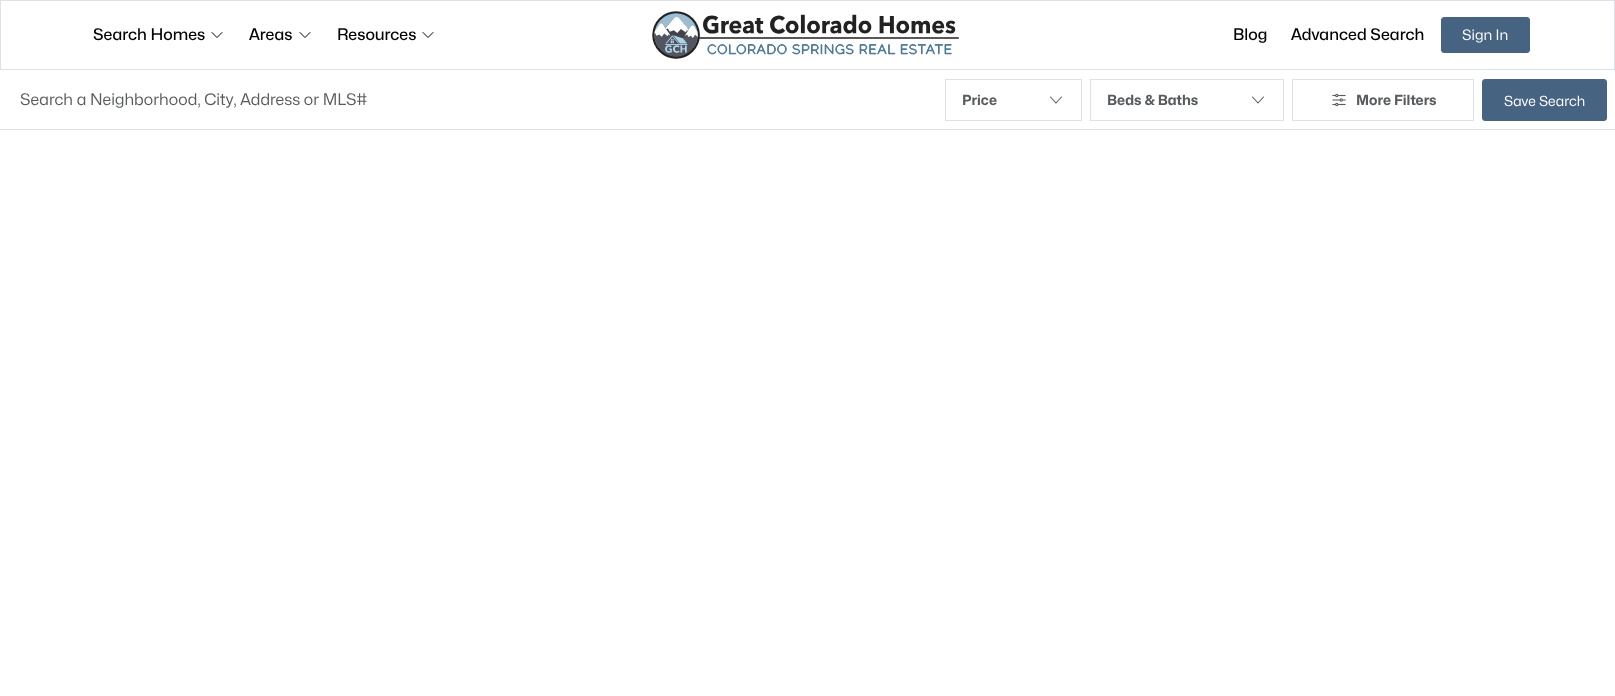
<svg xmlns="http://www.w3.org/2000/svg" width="1615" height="696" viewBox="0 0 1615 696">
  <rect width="100%" height="100%" fill="rgb(255,255,255)"/>
  <rect x="0.5" y="0.5" width="1614" height="69" fill="none" stroke="rgb(222,226,230)"/>
  <text x="93" y="40" font-family="Mona Sans" font-size="16" font-weight="500" fill="rgb(0,0,0)">Search Homes</text>
  <path d="M222 32.5L217 37.5L212 32.5" fill="none" stroke="rgb(0,0,0)" stroke-linecap="round" stroke-linejoin="round"/>
  <text x="249" y="40" font-family="Mona Sans" font-size="16" font-weight="500" fill="rgb(0,0,0)">Areas</text>
  <path d="M310 32.5L305 37.5L300 32.5" fill="none" stroke="rgb(0,0,0)" stroke-linecap="round" stroke-linejoin="round"/>
  <text x="337" y="40" font-family="Mona Sans" font-size="16" font-weight="500" fill="rgb(0,0,0)">Resources</text>
  <path d="M433 32.5L428 37.5L423 32.5" fill="none" stroke="rgb(0,0,0)" stroke-linecap="round" stroke-linejoin="round"/>
  <image x="652" y="11" width="307" height="48" href="pic1.png"/>
  <g font-family="Mona Sans" font-size="16" font-weight="500" fill="rgb(0,0,0)">
    <text x="1233" y="40">Blog</text>
    <text x="1291" y="40">Advanced Search</text>
  </g>
  <rect x="1441.5" y="17.5" width="88" height="35" rx="2.5" fill="rgb(70,99,130)" stroke="rgb(70,99,130)"/>
  <text x="1462" y="40" font-family="Mona Sans" font-size="14.5" fill="rgb(255,255,255)">Sign In</text>
  <rect x="0" y="129" width="1615" height="1" fill="rgb(222,226,230)"/>
  <text x="20" y="105" font-family="Mona Sans" font-size="16" fill="rgb(89,92,95)">Search a Neighborhood, City, Address or MLS#</text>
  <rect x="945.5" y="79.5" width="136" height="41" fill="none" stroke="rgb(222,226,230)"/>
  <text x="962" y="105" font-family="Mona Sans" font-size="14" font-weight="bold" fill="rgb(89,92,95)">Price</text>
  <path d="M1061.5 97L1056 103L1050.5 97" fill="none" stroke="rgb(89,92,95)" stroke-width="1.1" stroke-linecap="round" stroke-linejoin="round"/>
  <rect x="1090.5" y="79.5" width="193" height="41" fill="none" stroke="rgb(222,226,230)"/>
  <text x="1107" y="105" font-family="Mona Sans" font-size="14" font-weight="bold" fill="rgb(89,92,95)">Beds &amp; Baths</text>
  <path d="M1263.5 97L1258 103L1252.5 97" fill="none" stroke="rgb(89,92,95)" stroke-width="1.1" stroke-linecap="round" stroke-linejoin="round"/>
  <rect x="1292.5" y="79.5" width="181" height="41" fill="none" stroke="rgb(222,226,230)"/>
  <image x="1332" y="93" width="14" height="14" href="pic2.png"/>
  <text x="1356" y="105" font-family="Mona Sans" font-size="14" font-weight="bold" fill="rgb(89,92,95)">More Filters</text>
  <rect x="1482.5" y="79.5" width="124" height="41" rx="2.5" fill="rgb(70,99,130)" stroke="rgb(70,99,130)"/>
  <text x="1504" y="106" font-family="Mona Sans" font-size="14" fill="rgb(255,255,255)">Save Search</text>
</svg>
